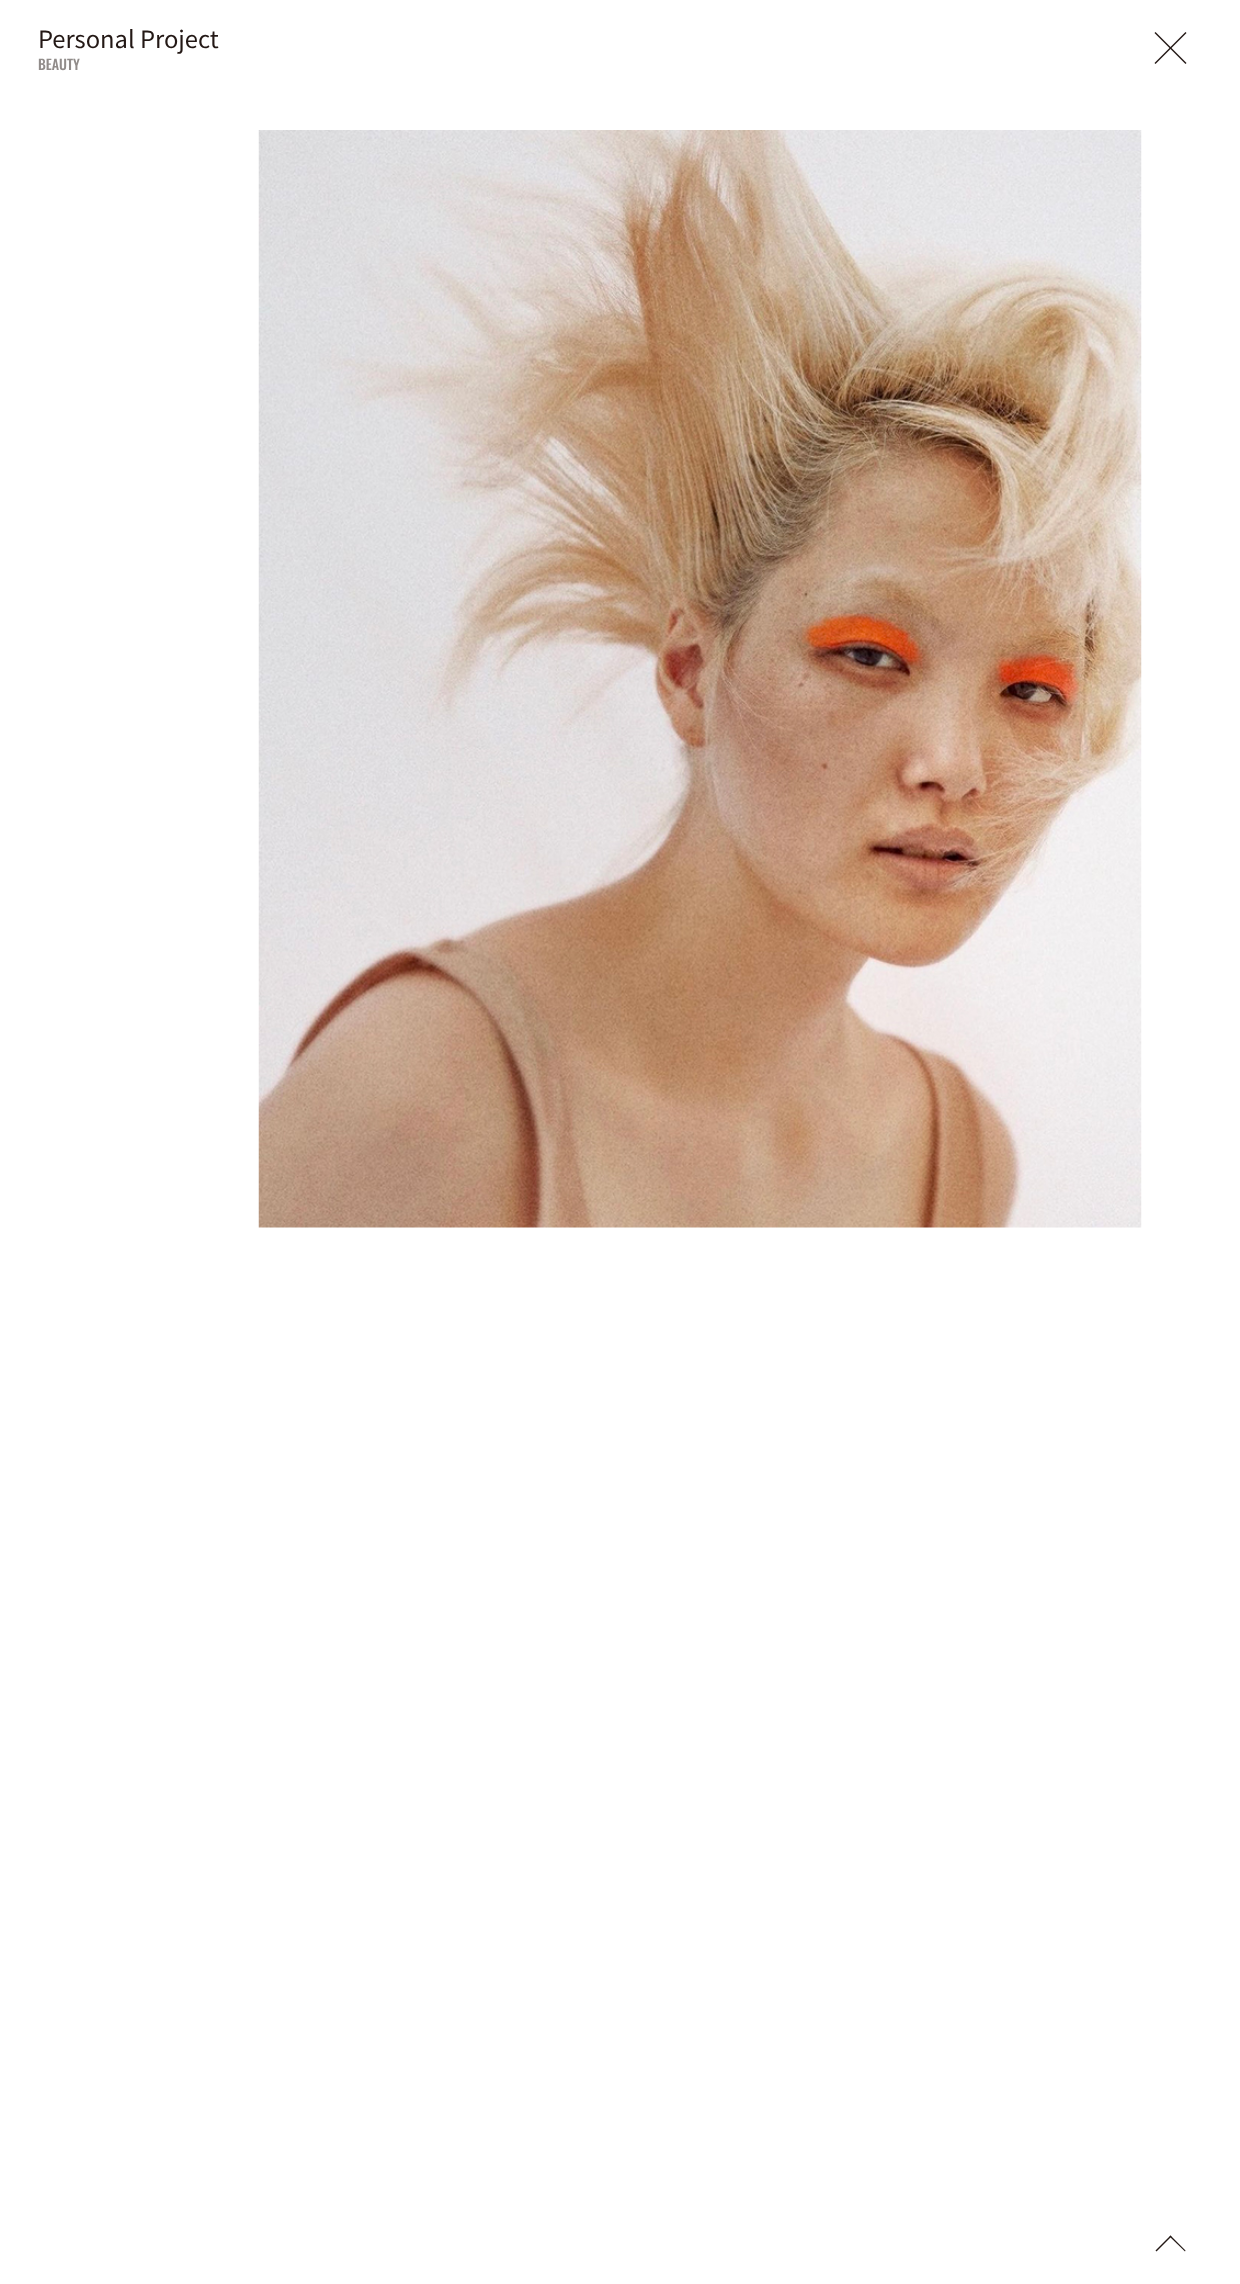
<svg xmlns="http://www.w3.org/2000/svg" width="1240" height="2284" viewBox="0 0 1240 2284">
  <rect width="100%" height="100%" fill="rgb(255,255,255)"/>
  <text x="38" y="48" font-family="Noto Sans JP" font-size="23.75" font-weight="100" fill="rgb(35,24,21)">Personal Project</text>
  <text x="38" y="70" font-family="Oswald" font-size="14" font-weight="500" fill="rgb(145,140,138)">BEAUTY</text>
  <path d="M1155.5 32L1186.5 63L1185.5 64L1154.5 33Z" fill="rgb(35,24,21)"/>
  <path d="M1154.5 63L1185.5 32L1186.5 33L1155.5 64Z" fill="rgb(35,24,21)"/>
  <image x="258" y="130" width="884" height="1098" href="pic1.png"/>
  <path d="M1155.5 2250.5L1170.5 2235.5L1171.5 2236.5L1156.5 2251.5Z" fill="rgb(35,24,21)"/>
  <path d="M1169.5 2236.5L1170.5 2235.5L1185.5 2250.5L1185 2251.5Z" fill="rgb(35,24,21)"/>
</svg>
